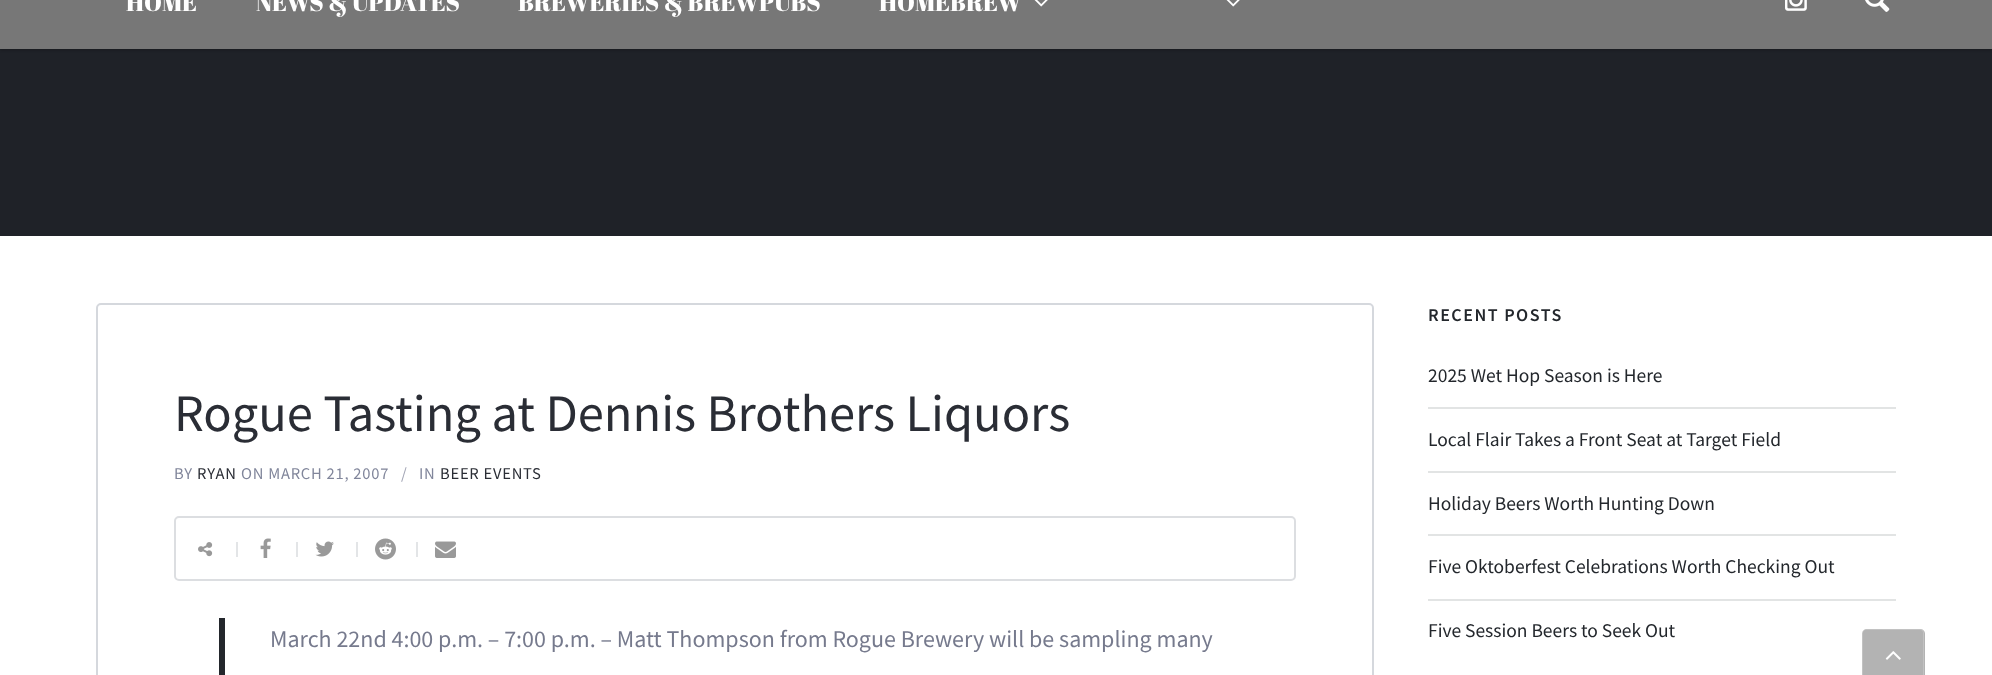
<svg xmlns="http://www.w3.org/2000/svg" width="1992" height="675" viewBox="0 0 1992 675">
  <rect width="100%" height="100%" fill="rgb(255,255,255)"/>
  <rect x="0" y="49" width="1992" height="187" fill="rgb(31,34,40)"/>
  <rect x="0" y="-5" width="1992" height="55" fill="rgba(0,0,0,0.25)" filter="blur(1.5px)"/>
  <rect x="0" y="0" width="1992" height="49" fill="rgb(119,119,119)"/>
  <g font-family="Abril Fatface" font-size="24" fill="rgb(255,255,255)">
    <text x="126" y="11">HOME</text>
    <text x="256" y="11">NEWS &amp; UPDATES</text>
    <text x="518" y="11">BREWERIES &amp; BREWPUBS</text>
    <text x="879" y="11">HOMEBREW</text>
  </g>
  <image x="1034" y="0" width="14" height="7" href="pic1.png"/>
  <image x="1226" y="0" width="14" height="7" href="pic1.png"/>
  <image x="1785" y="0" width="22" height="11" href="pic2.png"/>
  <image x="1865" y="0" width="25" height="12" href="pic3.png"/>
  <rect x="97" y="304" width="1276" height="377" rx="4" fill="none" stroke="rgb(213,216,221)" stroke-width="2"/>
  <text x="174" y="431" font-family="Source Sans Pro" font-size="52.5" fill="rgb(42,45,53)">Rogue Tasting at Dennis Brothers Liquors</text>
  <text x="174" y="479" font-family="Source Sans Pro" font-size="16.5" letter-spacing="0.75" fill="rgb(129,134,155)">BY</text>
  <text x="197" y="479" font-family="Source Sans Pro" font-size="16.5" letter-spacing="0.75" fill="rgb(42,45,53)">RYAN</text>
  <text x="241" y="479" font-family="Source Sans Pro" font-size="16.5" letter-spacing="0.75" fill="rgb(129,134,155)">ON MARCH 21, 2007</text>
  <text x="401" y="479" font-family="Source Sans Pro" font-size="16.5" letter-spacing="0.75" fill="rgb(161,164,180)">/</text>
  <text x="419" y="479" font-family="Source Sans Pro" font-size="16.5" letter-spacing="0.75" fill="rgb(129,134,155)">IN</text>
  <text x="440" y="479" font-family="Source Sans Pro" font-size="16.5" letter-spacing="0.75" fill="rgb(42,45,53)">BEER EVENTS</text>
  <rect x="175" y="517" width="1120" height="63" rx="4" fill="none" stroke="rgb(220,222,225)" stroke-width="2"/>
  <image x="198" y="542" width="15" height="15" href="pic4.png"/>
  <rect x="236" y="542" width="2" height="15" fill="rgb(227,229,231)"/>
  <image x="260" y="538" width="11" height="20" href="pic5.png"/>
  <rect x="296" y="542" width="2" height="15" fill="rgb(227,229,231)"/>
  <image x="315" y="541" width="19" height="16" href="pic6.png"/>
  <rect x="356" y="542" width="2" height="15" fill="rgb(227,229,231)"/>
  <image x="375" y="538" width="21" height="22" href="pic7.png"/>
  <rect x="416" y="542" width="2" height="15" fill="rgb(227,229,231)"/>
  <image x="435" y="541" width="21" height="17" href="pic8.png"/>
  <rect x="219" y="618" width="6" height="57" fill="rgb(35,39,44)"/>
  <text x="270" y="647" font-family="Source Sans Pro" font-size="24" fill="rgb(118,122,141)">March 22nd 4:00 p.m. – 7:00 p.m. – Matt Thompson from Rogue Brewery will be sampling many</text>
  <text x="1428" y="321" font-family="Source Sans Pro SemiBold" font-size="18" font-weight="600" letter-spacing="1.5" fill="rgb(35,39,44)">RECENT POSTS</text>
  <rect x="1428" y="407" width="468" height="2" fill="rgb(226,228,228)"/>
  <text x="1428" y="382" font-family="Source Sans Pro" font-size="19.5" fill="rgb(35,39,44)">2025 Wet Hop Season is Here</text>
  <rect x="1428" y="471" width="468" height="2" fill="rgb(226,228,228)"/>
  <text x="1428" y="446" font-family="Source Sans Pro" font-size="19.5" fill="rgb(35,39,44)">Local Flair Takes a Front Seat at Target Field</text>
  <rect x="1428" y="534" width="468" height="2" fill="rgb(226,228,228)"/>
  <text x="1428" y="510" font-family="Source Sans Pro" font-size="19.5" fill="rgb(35,39,44)">Holiday Beers Worth Hunting Down</text>
  <rect x="1428" y="599" width="468" height="2" fill="rgb(226,228,228)"/>
  <g font-family="Source Sans Pro" font-size="19.5" fill="rgb(35,39,44)">
    <text x="1428" y="573">Five Oktoberfest Celebrations Worth Checking Out</text>
    <text x="1428" y="637">Five Session Beers to Seek Out</text>
  </g>
  <path d="M1867 629H1920C1923 629 1925 631 1925 634V675H1862V634C1862 631 1864 629 1867 629Z" fill="rgb(179,179,179)"/>
  <path d="M1866 628H1920C1922 628 1924 631 1924 633V675H1862V633C1862 631 1864 628 1866 628ZM1866 630H1920C1922 630 1923 631 1923 633V675H1863V633C1863 631 1864 630 1866 630Z" fill="rgba(255,255,255,0.2)" fill-rule="evenodd"/>
  <image x="1885" y="651" width="16" height="9" href="pic9.png"/>
</svg>
